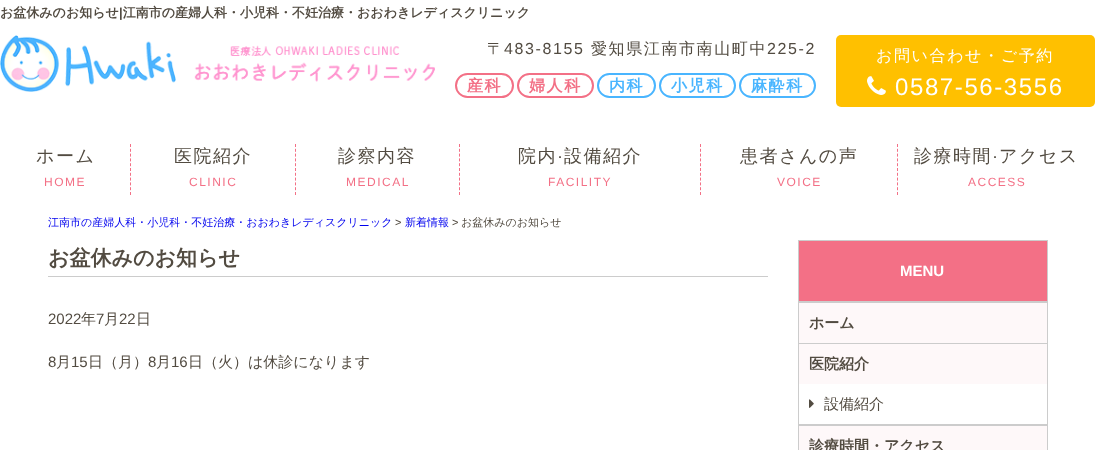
<svg xmlns="http://www.w3.org/2000/svg" width="1095" height="450" viewBox="0 0 1095 450">
  <rect width="100%" height="100%" fill="rgb(255,255,255)"/>
  <text x="0" y="17" font-family="WenQuanYi Zen Hei" font-size="13" font-weight="bold" fill="rgb(82,75,65)">お盆休みのお知らせ 江南市の産婦人科・小児科・不妊治療・おおわきレディスクリニック</text>
  <text x="119" y="17" font-family="Liberation Sans" font-size="13" font-weight="bold" fill="rgb(82,75,65)">|</text>
  <image x="0" y="35" width="435" height="57" href="pic1.png"/>
  <text x="487" y="54" font-family="WenQuanYi Zen Hei" font-size="16" font-weight="500" letter-spacing="1.6" fill="rgb(82,75,65)">〒</text>
  <text x="504" y="54" font-family="Liberation Sans" font-size="16" letter-spacing="1.6" fill="rgb(82,75,65)">483-8155</text>
  <text x="591" y="54" font-family="WenQuanYi Zen Hei" font-size="16" font-weight="500" letter-spacing="1.6" fill="rgb(82,75,65)">愛知県江南市南山町中</text>
  <text x="767" y="54" font-family="Liberation Sans" font-size="16" letter-spacing="1.6" fill="rgb(82,75,65)">225-2</text>
  <rect x="456" y="74" width="57" height="23" rx="11.5" fill="none" stroke="rgb(243,112,134)" stroke-width="2"/>
  <text x="467" y="91" font-family="WenQuanYi Zen Hei" font-size="16" font-weight="bold" letter-spacing="1.6" fill="rgb(243,112,134)">産科</text>
  <rect x="518" y="74" width="75" height="23" rx="11.5" fill="none" stroke="rgb(243,112,134)" stroke-width="2"/>
  <text x="529" y="91" font-family="WenQuanYi Zen Hei" font-size="16" font-weight="bold" letter-spacing="1.6" fill="rgb(243,112,134)">婦人科</text>
  <rect x="598" y="74" width="57" height="23" rx="11.5" fill="none" stroke="rgb(73,181,255)" stroke-width="2"/>
  <text x="609" y="91" font-family="WenQuanYi Zen Hei" font-size="16" font-weight="bold" letter-spacing="1.6" fill="rgb(73,181,255)">内科</text>
  <rect x="660" y="74" width="75" height="23" rx="11.5" fill="none" stroke="rgb(73,181,255)" stroke-width="2"/>
  <text x="671" y="91" font-family="WenQuanYi Zen Hei" font-size="16" font-weight="bold" letter-spacing="1.6" fill="rgb(73,181,255)">小児科</text>
  <rect x="740" y="74" width="75" height="23" rx="11.5" fill="none" stroke="rgb(73,181,255)" stroke-width="2"/>
  <text x="751" y="91" font-family="WenQuanYi Zen Hei" font-size="16" font-weight="bold" letter-spacing="1.6" fill="rgb(73,181,255)">麻酔科</text>
  <rect x="836" y="35" width="259" height="72" rx="5" fill="rgb(255,192,0)"/>
  <text x="876" y="61" font-family="WenQuanYi Zen Hei" font-size="16" font-weight="500" letter-spacing="1.6" fill="rgb(255,255,255)">お問い合わせ・ご予約</text>
  <image x="867" y="76" width="19" height="19" href="pic2.png"/>
  <text x="895" y="95" font-family="Liberation Sans" font-size="24" letter-spacing="1.6" fill="rgb(255,255,255)">0587-56-3556</text>
  <path d="M130.5 144V195" fill="none" stroke="rgb(243,112,134)" stroke-dasharray="3 1.8"/>
  <text x="36" y="162" font-family="WenQuanYi Zen Hei" font-size="18" font-weight="500" letter-spacing="1.5" fill="rgb(82,75,65)">ホーム</text>
  <text x="44" y="186" font-family="Liberation Sans" font-size="12" letter-spacing="1.5" fill="rgb(243,112,134)">HOME</text>
  <path d="M295.5 144V195" fill="none" stroke="rgb(243,112,134)" stroke-dasharray="3 1.8"/>
  <text x="174" y="162" font-family="WenQuanYi Zen Hei" font-size="18" font-weight="500" letter-spacing="1.5" fill="rgb(82,75,65)">医院紹介</text>
  <text x="189" y="186" font-family="Liberation Sans" font-size="12" letter-spacing="1.5" fill="rgb(243,112,134)">CLINIC</text>
  <path d="M459.5 144V195" fill="none" stroke="rgb(243,112,134)" stroke-dasharray="3 1.8"/>
  <text x="338" y="162" font-family="WenQuanYi Zen Hei" font-size="18" font-weight="500" letter-spacing="1.5" fill="rgb(82,75,65)">診察内容</text>
  <text x="346" y="186" font-family="Liberation Sans" font-size="12" letter-spacing="1.5" fill="rgb(243,112,134)">MEDICAL</text>
  <path d="M700.5 144V195" fill="none" stroke="rgb(243,112,134)" stroke-dasharray="3 1.8"/>
  <text x="518" y="162" font-family="WenQuanYi Zen Hei" font-size="18" font-weight="500" letter-spacing="1.5" fill="rgb(82,75,65)">院内</text>
  <text x="557" y="162" font-family="Liberation Sans" font-size="18" letter-spacing="1.5" fill="rgb(82,75,65)">·</text>
  <text x="564" y="162" font-family="WenQuanYi Zen Hei" font-size="18" font-weight="500" letter-spacing="1.5" fill="rgb(82,75,65)">設備紹介</text>
  <text x="548" y="186" font-family="Liberation Sans" font-size="12" letter-spacing="1.5" fill="rgb(243,112,134)">FACILITY</text>
  <path d="M897.5 144V195" fill="none" stroke="rgb(243,112,134)" stroke-dasharray="3 1.8"/>
  <text x="740" y="162" font-family="WenQuanYi Zen Hei" font-size="18" font-weight="500" letter-spacing="1.5" fill="rgb(82,75,65)">患者さんの声</text>
  <text x="777" y="186" font-family="Liberation Sans" font-size="12" letter-spacing="1.5" fill="rgb(243,112,134)">VOICE</text>
  <text x="914" y="162" font-family="WenQuanYi Zen Hei" font-size="18" font-weight="500" letter-spacing="1.5" fill="rgb(82,75,65)">診療時間</text>
  <text x="992" y="162" font-family="Liberation Sans" font-size="18" letter-spacing="1.5" fill="rgb(82,75,65)">·</text>
  <text x="999" y="162" font-family="WenQuanYi Zen Hei" font-size="18" font-weight="500" letter-spacing="1.5" fill="rgb(82,75,65)">アクセス</text>
  <text x="968" y="186" font-family="Liberation Sans" font-size="12" letter-spacing="1.5" fill="rgb(243,112,134)">ACCESS</text>
  <text x="48" y="226" font-family="WenQuanYi Zen Hei" font-size="11" font-weight="500" fill="rgb(0,0,238)">江南市の産婦人科・小児科・不妊治療・おおわきレディスクリニック</text>
  <text x="395" y="226" font-family="Liberation Sans" font-size="11" fill="rgb(82,75,65)">&gt;</text>
  <text x="405" y="226" font-family="WenQuanYi Zen Hei" font-size="11" font-weight="500" fill="rgb(0,0,238)">新着情報</text>
  <text x="452" y="226" font-family="Liberation Sans" font-size="11" fill="rgb(82,75,65)">&gt;</text>
  <text x="461" y="226" font-family="WenQuanYi Zen Hei" font-size="11" font-weight="500" fill="rgb(82,75,65)">お盆休みのお知らせ</text>
  <rect x="48" y="276" width="720" height="1" fill="rgb(204,204,204)"/>
  <text x="48" y="265" font-family="WenQuanYi Zen Hei" font-size="21" font-weight="bold" fill="rgb(82,75,65)">お盆休みのお知らせ</text>
  <text x="48" y="324" font-family="Liberation Sans" font-size="15" fill="rgb(82,75,65)">2022</text>
  <text x="81" y="324" font-family="WenQuanYi Zen Hei" font-size="15" font-weight="500" fill="rgb(82,75,65)">年</text>
  <text x="96" y="324" font-family="Liberation Sans" font-size="15" fill="rgb(82,75,65)">7</text>
  <text x="104" y="324" font-family="WenQuanYi Zen Hei" font-size="15" font-weight="500" fill="rgb(82,75,65)">月</text>
  <text x="119" y="324" font-family="Liberation Sans" font-size="15" fill="rgb(82,75,65)">22</text>
  <text x="136" y="324" font-family="WenQuanYi Zen Hei" font-size="15" font-weight="500" fill="rgb(82,75,65)">日</text>
  <text x="48" y="367" font-family="Liberation Sans" font-size="15" fill="rgb(82,75,65)">8</text>
  <text x="56" y="367" font-family="WenQuanYi Zen Hei" font-size="15" font-weight="500" fill="rgb(82,75,65)">月</text>
  <text x="71" y="367" font-family="Liberation Sans" font-size="15" fill="rgb(82,75,65)">15</text>
  <text x="88" y="367" font-family="WenQuanYi Zen Hei" font-size="15" font-weight="500" fill="rgb(82,75,65)">日（月）</text>
  <text x="148" y="367" font-family="Liberation Sans" font-size="15" fill="rgb(82,75,65)">8</text>
  <text x="156" y="367" font-family="WenQuanYi Zen Hei" font-size="15" font-weight="500" fill="rgb(82,75,65)">月</text>
  <text x="171" y="367" font-family="Liberation Sans" font-size="15" fill="rgb(82,75,65)">16</text>
  <text x="188" y="367" font-family="WenQuanYi Zen Hei" font-size="15" font-weight="500" fill="rgb(82,75,65)">日（火）は休診になります</text>
  <rect x="798.5" y="240.5" width="249" height="61" fill="rgb(243,112,134)" stroke="rgb(204,204,204)"/>
  <text x="900" y="276" font-family="Liberation Sans" font-size="15" font-weight="bold" fill="rgb(255,255,255)">MENU</text>
  <rect x="798.5" y="302.5" width="249" height="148" fill="none" stroke="rgb(204,204,204)"/>
  <rect x="799" y="303" width="248" height="40" fill="rgb(254,248,249)"/>
  <rect x="799" y="343" width="248" height="1" fill="rgb(204,204,204)"/>
  <text x="809" y="328" font-family="WenQuanYi Zen Hei" font-size="15" font-weight="bold" fill="rgb(82,75,65)">ホーム</text>
  <rect x="799" y="344" width="248" height="40" fill="rgb(254,248,249)"/>
  <rect x="799" y="424" width="248" height="2" fill="rgb(204,204,204)"/>
  <text x="809" y="369" font-family="WenQuanYi Zen Hei" font-size="15" font-weight="bold" fill="rgb(82,75,65)">医院紹介</text>
  <image x="809" y="399" width="5" height="9" href="pic3.png"/>
  <text x="824" y="409" font-family="WenQuanYi Zen Hei" font-size="15" font-weight="500" fill="rgb(82,75,65)">設備紹介</text>
  <rect x="799" y="426" width="248" height="24" fill="rgb(254,248,249)"/>
  <text x="809" y="451" font-family="WenQuanYi Zen Hei" font-size="15" font-weight="bold" fill="rgb(82,75,65)">診療時間・アクセス</text>
</svg>
